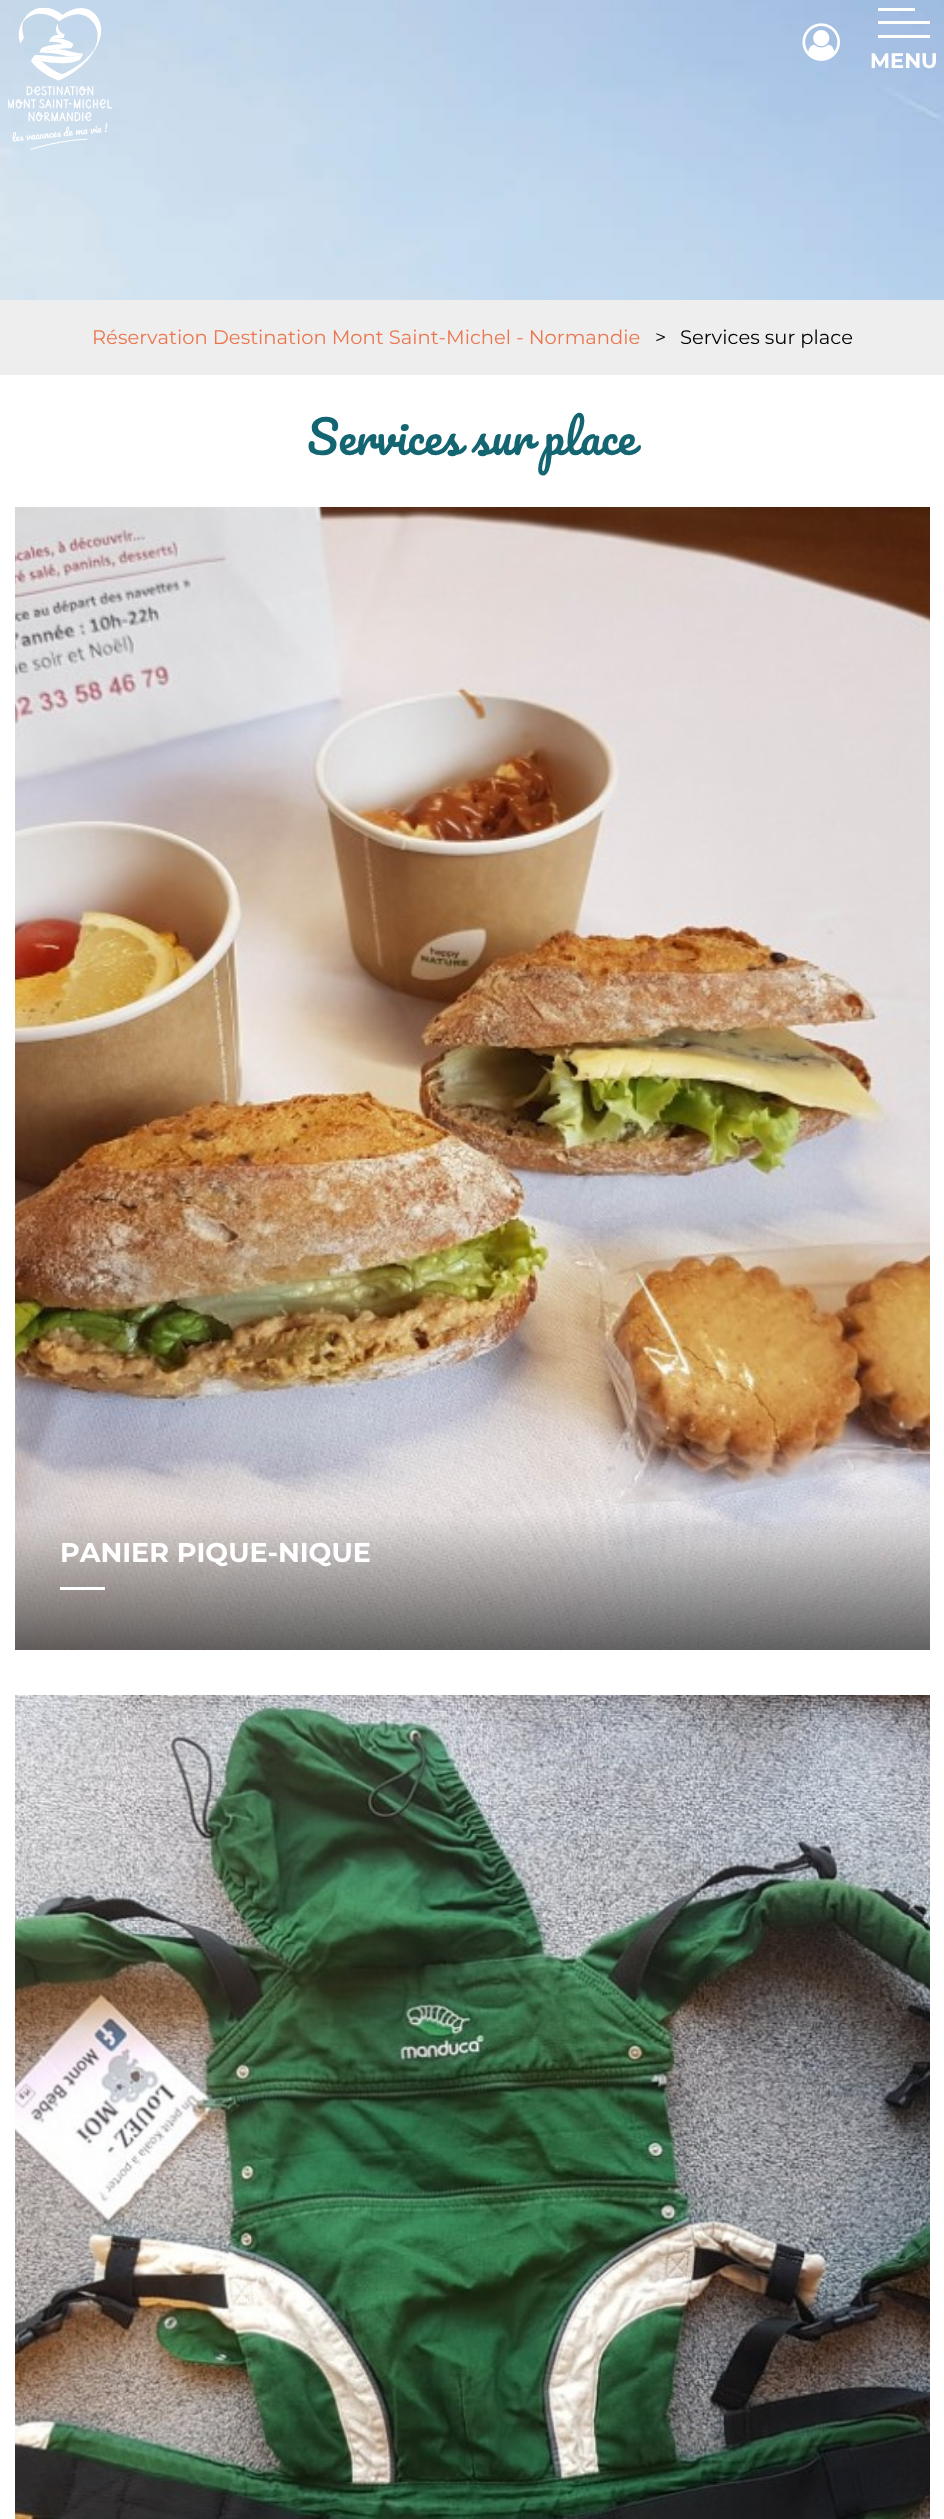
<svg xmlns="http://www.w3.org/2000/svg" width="944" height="2519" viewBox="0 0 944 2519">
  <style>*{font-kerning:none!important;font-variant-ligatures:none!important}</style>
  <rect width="100%" height="100%" fill="rgb(255,255,255)"/>
  <image x="0" y="0" width="944" height="300" href="pic1.png"/>
  <image x="8" y="8" width="105" height="142" href="pic2.png"/>
  <image x="802" y="23" width="38" height="38" href="pic3.png"/>
  <rect x="878" y="8" width="37" height="3" fill="rgb(255,255,255)"/>
  <rect x="878" y="21" width="52" height="3" fill="rgb(255,255,255)"/>
  <rect x="878" y="35" width="52" height="3" fill="rgb(255,255,255)"/>
  <text x="870" y="68" font-family="Montserrat" font-size="21" font-weight="bold" fill="rgb(255,255,255)">MENU</text>
  <rect x="0" y="300" width="944" height="75" fill="rgb(238,238,238)"/>
  <text x="92" y="344" font-family="Montserrat" font-size="19.5" fill="rgb(236,118,78)">Réservation Destination Mont Saint-Michel - Normandie</text>
  <g font-family="Montserrat" font-size="19.5" fill="rgb(0,0,0)">
    <text x="655" y="344">&gt;</text>
    <text x="680" y="344">Services sur place</text>
  </g>
  <text x="307" y="455" word-spacing="-1" font-family="Pacifico" font-size="45" fill="rgb(20,101,114)">Services sur place</text>
  <image x="15" y="507" width="915" height="1143" href="pic4.png"/>
  <text x="60" y="1562" font-family="Montserrat" font-size="27" font-weight="bold" fill="rgb(255,255,255)">PANIER PIQUE-NIQUE</text>
  <rect x="60" y="1587" width="45" height="3" fill="rgb(255,255,255)"/>
  <image x="15" y="1695" width="915" height="824" href="pic5.png"/>
</svg>
